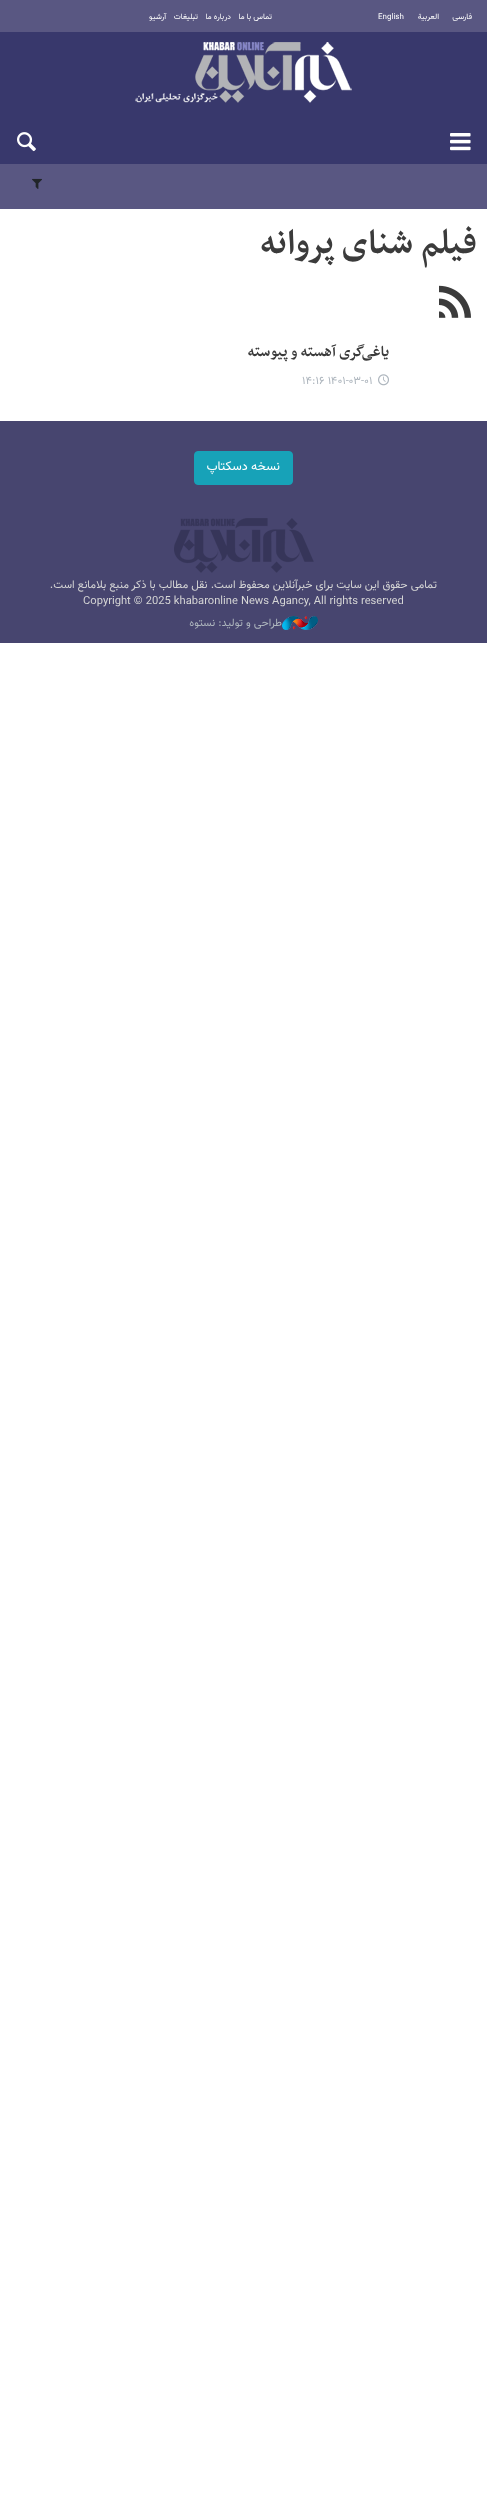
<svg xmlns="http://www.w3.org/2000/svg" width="487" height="2512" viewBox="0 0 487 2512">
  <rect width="100%" height="100%" fill="rgb(255,255,255)"/>
  <rect x="0" y="32" width="487" height="132" fill="rgb(56,56,108)"/>
  <rect x="0" y="0" width="487" height="32" fill="rgb(89,87,130)"/>
  <g font-family="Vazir" font-size="8" direction="rtl" fill="rgb(255,255,255)">
    <text x="472" y="19">فارسی</text>
    <text x="439" y="19">العربية</text>
  </g>
  <text x="378" y="19" font-family="Vazir" font-size="8" fill="rgb(255,255,255)">English</text>
  <g font-family="Vazir" font-size="8" direction="rtl" fill="rgb(255,255,255)">
    <text x="272" y="19">تماس با ما</text>
    <text x="231" y="19">درباره ما</text>
    <text x="198" y="19">تبلیغات</text>
    <text x="166" y="19">آرشیو</text>
  </g>
  <image x="135" y="42" width="217" height="61" href="pic1.png"/>
  <image x="450" y="133" width="21" height="18" href="pic2.png"/>
  <image x="17" y="132" width="19" height="20" href="pic3.png"/>
  <rect x="0" y="164" width="487" height="45" fill="rgb(89,87,130)"/>
  <image x="32" y="178" width="10" height="11" href="pic4.png"/>
  <text x="477" y="253" font-family="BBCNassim" font-size="40" font-weight="bold" direction="rtl" fill="rgb(59,59,59)">فیلم شنای پروانه</text>
  <image x="439" y="285" width="32" height="33" href="pic5.png"/>
  <text x="389" y="356" font-family="BBCNassim" font-size="17.5" font-weight="bold" direction="rtl" fill="rgb(59,59,59)">یاغی‌گری آهسته و پیوسته</text>
  <image x="378" y="374" width="11" height="12" href="pic6.png"/>
  <text x="302" y="384" font-family="Vazir" font-size="11.2" fill="rgb(173,181,189)">۱۴:۱۶ ۱۴۰۱-۰۳-۰۱</text>
  <rect x="0" y="421" width="487" height="222" fill="rgb(71,69,111)"/>
  <rect x="194.5" y="451.5" width="98" height="33" rx="3.5" fill="rgb(23,162,184)" stroke="rgb(23,162,184)"/>
  <text x="280" y="470" font-family="Vazir" font-size="12.75" direction="rtl" fill="rgb(255,255,255)">نسخه دسکتاپ</text>
  <image x="174" y="518" width="140" height="55" href="pic7.png"/>
  <text x="437" y="588" font-family="Vazir" font-size="11.2" direction="rtl" fill="rgb(213,213,213)">تمامی حقوق این سایت برای خبرآنلاین محفوظ است. نقل مطالب با ذکر منبع بلامانع است.</text>
  <text x="83" y="604" font-family="Vazir" font-size="11.2" fill="rgb(213,213,213)">Copyright © 2025 khabaronline News Agancy, All rights reserved</text>
  <image x="282" y="616" width="36" height="14" href="pic8.png"/>
  <text x="282" y="626" font-family="Vazir" font-size="11" direction="rtl" fill="rgb(173,181,189)">طراحی و تولید: نستوه</text>
</svg>
